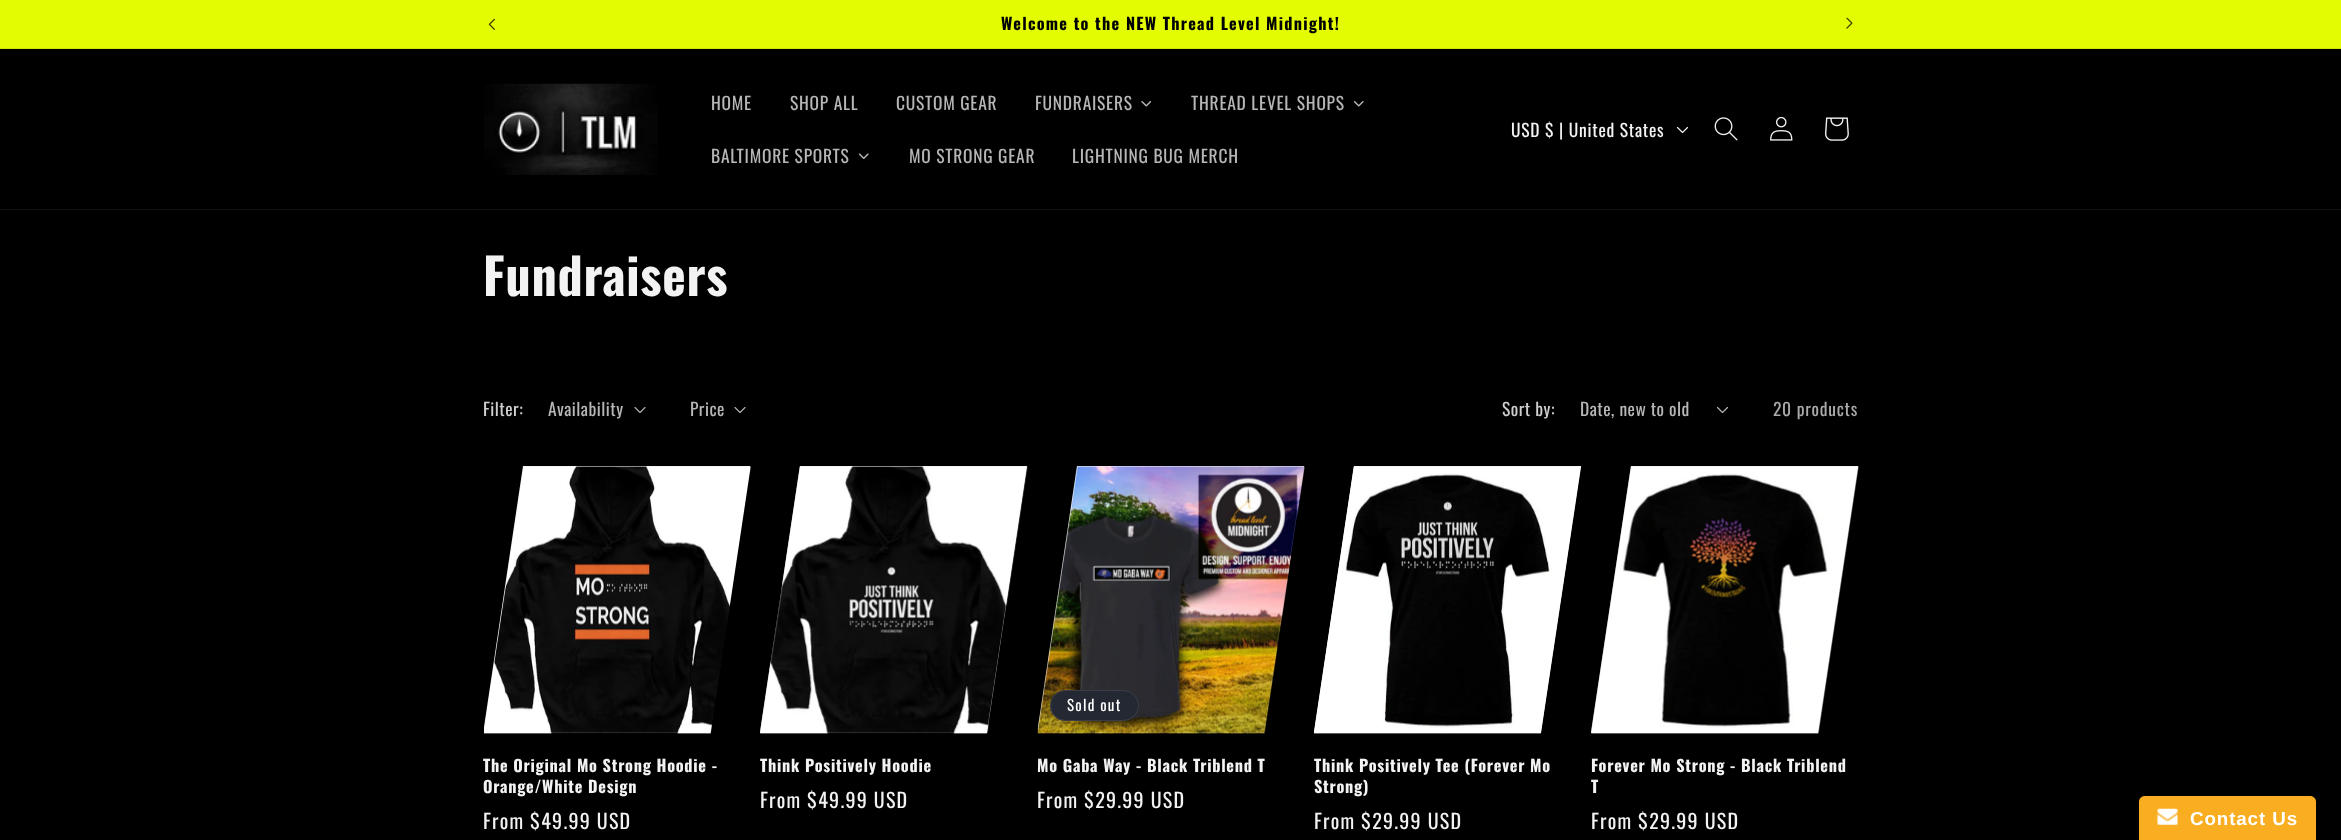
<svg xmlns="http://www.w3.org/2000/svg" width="2341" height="840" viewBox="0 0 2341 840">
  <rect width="100%" height="100%" fill="rgb(0,0,0)"/>
  <rect x="0" y="0" width="2341" height="48" fill="rgb(227,252,2)"/>
  <rect x="0" y="48" width="2341" height="1" fill="rgb(209,232,2)"/>
  <image x="488" y="18" width="7" height="12" href="pic1.png"/>
  <text x="1001" y="30" font-family="Oswald" font-size="16.25" font-weight="bold" letter-spacing="1.25" fill="rgb(0,0,0)">Welcome to the NEW Thread Level Midnight!</text>
  <image x="1846" y="17" width="7" height="12" href="pic2.png"/>
  <rect x="0" y="209" width="2341" height="1" fill="rgb(19,19,19)"/>
  <image x="484" y="83" width="174" height="92" href="pic3.png"/>
  <g font-family="Oswald" font-size="17.5" letter-spacing="0.75" fill="rgb(182,182,182)">
    <text x="711" y="110">HOME</text>
    <text x="790" y="110">SHOP ALL</text>
    <text x="896" y="110">CUSTOM GEAR</text>
    <text x="1035" y="110">FUNDRAISERS</text>
  </g>
  <image x="1141" y="101" width="11" height="6" href="pic4.png"/>
  <text x="1191" y="110" font-family="Oswald" font-size="17.5" letter-spacing="0.75" fill="rgb(182,182,182)">THREAD LEVEL SHOPS</text>
  <image x="1353" y="101" width="11" height="6" href="pic5.png"/>
  <text x="711" y="163" font-family="Oswald" font-size="17.5" letter-spacing="0.75" fill="rgb(182,182,182)">BALTIMORE SPORTS</text>
  <image x="858" y="153" width="11" height="6" href="pic6.png"/>
  <g font-family="Oswald" font-size="17.5" letter-spacing="0.75" fill="rgb(182,182,182)">
    <text x="909" y="163">MO STRONG GEAR</text>
    <text x="1072" y="163">LIGHTNING BUG MERCH</text>
  </g>
  <text x="1511" y="137" font-family="Oswald" font-size="17.5" letter-spacing="0.75" fill="rgb(243,243,243)">USD $ | United States</text>
  <image x="1676" y="126" width="13" height="8" href="pic7.png"/>
  <image x="1714" y="117" width="24" height="24" href="pic8.png"/>
  <image x="1770" y="116" width="23" height="25" href="pic9.png"/>
  <image x="1825" y="117" width="24" height="24" href="pic10.png"/>
  <text x="483" y="296" font-family="Oswald" font-size="50" font-weight="bold" letter-spacing="0.75" fill="rgb(243,243,243)">Fundraisers</text>
  <text x="483" y="416" font-family="Oswald" font-size="17.5" letter-spacing="0.5" fill="rgb(207,207,207)">Filter:</text>
  <text x="548" y="416" font-family="Oswald" font-size="17.5" letter-spacing="0.5" fill="rgb(182,182,182)">Availability</text>
  <image x="634" y="407" width="12" height="6" href="pic11.png"/>
  <text x="690" y="416" font-family="Oswald" font-size="17.5" letter-spacing="0.5" fill="rgb(182,182,182)">Price</text>
  <image x="734" y="407" width="12" height="6" href="pic11.png"/>
  <text x="1502" y="416" font-family="Oswald" font-size="17.5" letter-spacing="0.5" fill="rgb(207,207,207)">Sort by:</text>
  <text x="1580" y="416" font-family="Oswald" font-size="17.5" letter-spacing="0.5" fill="rgb(182,182,182)">Date, new to old</text>
  <image x="1716" y="406" width="13" height="8" href="pic12.png"/>
  <text x="1773" y="416" font-family="Oswald" font-size="17.5" letter-spacing="0.75" fill="rgb(170,170,170)">20 products</text>
  <path d="M523 466H750V467L710 733H484V727Z" fill="rgb(243,243,243)"/>
  <image x="484" y="466" width="267" height="268" href="pic13.png"/>
  <g font-family="Oswald" font-size="16.25" font-weight="bold" letter-spacing="0.75" fill="rgb(243,243,243)">
    <text>
      <tspan x="483" y="772">The Original Mo Strong Hoodie -</tspan>
      <tspan x="483" y="793">Orange/White Design</tspan>
    </text>
  </g>
  <text x="483" y="829" font-family="Oswald" font-size="20" letter-spacing="1.25" fill="rgb(243,243,243)">From $49.99 USD</text>
  <path d="M800 466L760 733H987L1027 466Z" fill="rgb(243,243,243)"/>
  <image x="760" y="466" width="268" height="268" href="pic14.png"/>
  <text x="760" y="772" font-family="Oswald" font-size="16.25" font-weight="bold" letter-spacing="0.75" fill="rgb(243,243,243)">Think Positively Hoodie</text>
  <text x="760" y="808" font-family="Oswald" font-size="20" letter-spacing="1.25" fill="rgb(243,243,243)">From $49.99 USD</text>
  <path d="M1077 466H1304V467L1264 733H1038V727Z" fill="rgb(243,243,243)"/>
  <image x="1037" y="466" width="268" height="268" href="pic15.png"/>
  <rect x="1050" y="690" width="89" height="31" rx="15.5" fill="rgb(36,40,51)"/>
  <rect x="1050.5" y="690.5" width="88" height="30" rx="15" fill="none" stroke="rgba(255,255,255,0.1)"/>
  <text x="1067" y="711" font-family="Oswald" font-size="15" letter-spacing="1.25" fill="rgb(255,255,255)">Sold out</text>
  <text x="1037" y="772" font-family="Oswald" font-size="16.25" font-weight="bold" letter-spacing="0.75" fill="rgb(243,243,243)">Mo Gaba Way - Black Triblend T</text>
  <text x="1037" y="808" font-family="Oswald" font-size="20" letter-spacing="1.25" fill="rgb(243,243,243)">From $29.99 USD</text>
  <path d="M1354 466H1581V467L1541 733H1314Z" fill="rgb(243,243,243)"/>
  <image x="1314" y="466" width="267" height="268" href="pic16.png"/>
  <g font-family="Oswald" font-size="16.25" font-weight="bold" letter-spacing="0.75" fill="rgb(243,243,243)">
    <text>
      <tspan x="1314" y="772">Think Positively Tee (Forever Mo</tspan>
      <tspan x="1314" y="793">Strong)</tspan>
    </text>
  </g>
  <text x="1314" y="829" font-family="Oswald" font-size="20" letter-spacing="1.25" fill="rgb(243,243,243)">From $29.99 USD</text>
  <path d="M1631 466H1858V467L1818 733H1591Z" fill="rgb(243,243,243)"/>
  <image x="1591" y="466" width="268" height="268" href="pic17.png"/>
  <g font-family="Oswald" font-size="16.25" font-weight="bold" letter-spacing="0.75" fill="rgb(243,243,243)">
    <text>
      <tspan x="1591" y="772">Forever Mo Strong - Black Triblend</tspan>
      <tspan x="1591" y="793">T</tspan>
    </text>
  </g>
  <text x="1591" y="829" font-family="Oswald" font-size="20" letter-spacing="1.25" fill="rgb(243,243,243)">From $29.99 USD</text>
  <path d="M2145 796H2310C2313.5 796 2316 798.5 2316 802V840H2139V802C2139 798.5 2141.5 796 2145 796Z" fill="rgb(249,173,32)"/>
  <image x="2157" y="808" width="21" height="17" href="pic18.png"/>
  <text x="2190" y="825" font-family="Liberation Sans" font-size="18.75" font-weight="bold" letter-spacing="0.9" fill="rgb(255,255,255)">Contact Us</text>
</svg>
